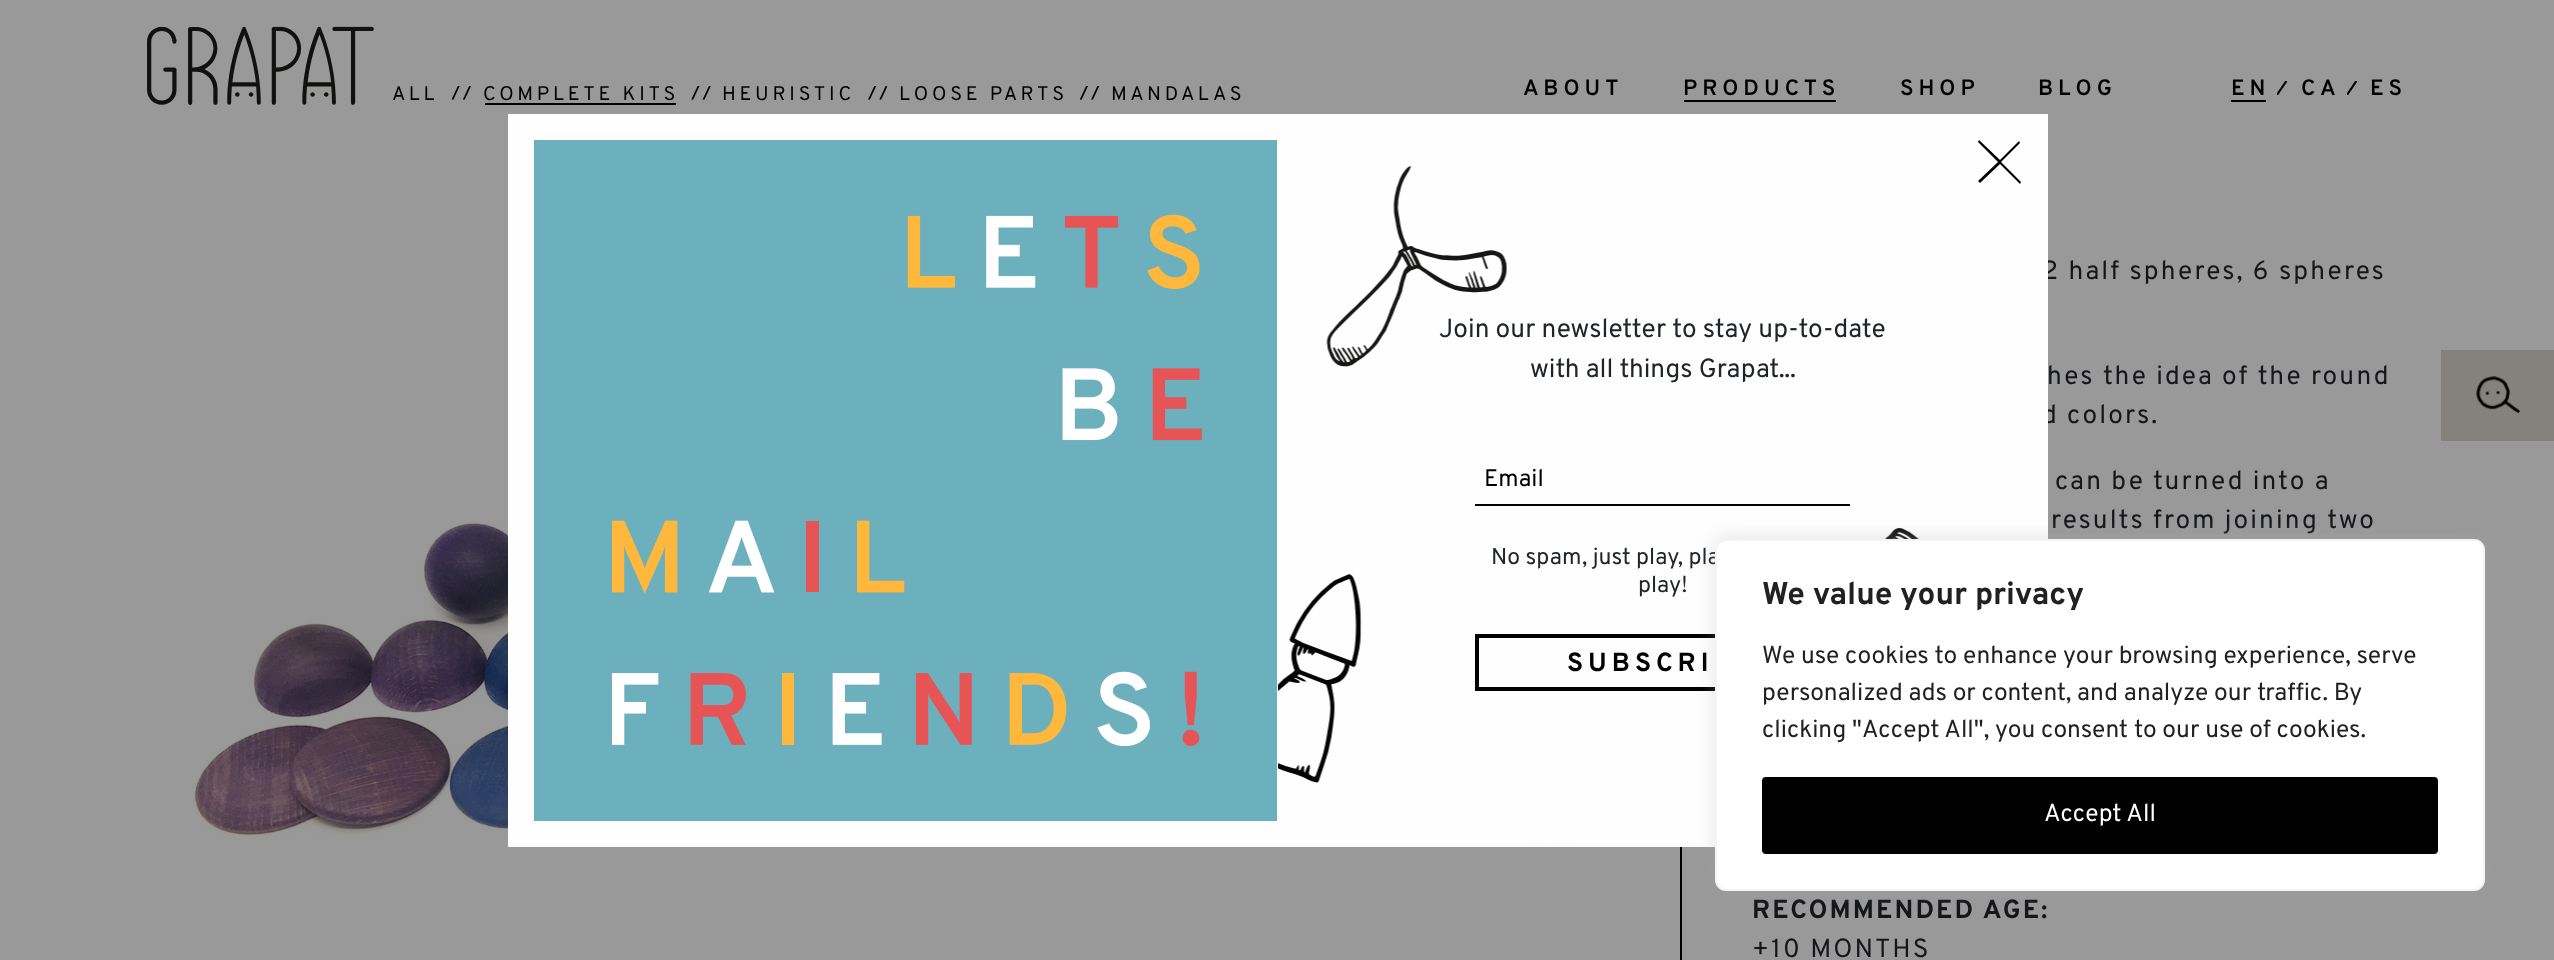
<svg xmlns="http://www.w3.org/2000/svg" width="2554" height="960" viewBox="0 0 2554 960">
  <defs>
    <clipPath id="clip1"><rect x="2277" y="81" width="10" height="14"/></clipPath>
    <clipPath id="clip2"><rect x="2347" y="81" width="10" height="14"/></clipPath>
  </defs>
  <rect width="100%" height="100%" fill="rgb(153,153,153)"/>
  <image x="147" y="26" width="227" height="79" href="pic1.png"/>
  <text x="392" y="100" font-family="Overpass" font-size="19.75" letter-spacing="3.75" fill="rgb(0,0,0)">ALL</text>
  <image x="452" y="86" width="19" height="14" href="pic2.png"/>
  <text x="483" y="100" font-family="Overpass" font-size="19.75" letter-spacing="3.75" fill="rgb(0,0,0)">COMPLETE KITS</text>
  <rect x="485" y="103" width="191" height="2" fill="rgb(0,0,0)"/>
  <image x="691" y="86" width="20" height="14" href="pic3.png"/>
  <text x="722" y="100" font-family="Overpass" font-size="19.75" letter-spacing="3.75" fill="rgb(0,0,0)">HEURISTIC</text>
  <image x="868" y="86" width="19" height="14" href="pic4.png"/>
  <text x="899" y="100" font-family="Overpass" font-size="19.75" letter-spacing="3.75" fill="rgb(0,0,0)">LOOSE PARTS</text>
  <image x="1080" y="86" width="19" height="14" href="pic5.png"/>
  <text x="1111" y="100" font-family="Overpass" font-size="19.75" letter-spacing="3.75" fill="rgb(0,0,0)">MANDALAS</text>
  <g font-family="Overpass" font-size="22.25" font-weight="600" letter-spacing="5" fill="rgb(0,0,0)">
    <text x="1523" y="95">ABOUT</text>
    <text x="1683" y="95">PRODUCTS</text>
  </g>
  <rect x="1684" y="100" width="152" height="2" fill="rgb(0,0,0)"/>
  <g font-family="Overpass" font-size="22.25" font-weight="600" letter-spacing="5" fill="rgb(0,0,0)">
    <text x="1900" y="95">SHOP</text>
    <text x="2038" y="95">BLOG</text>
    <text x="2231" y="95">EN</text>
  </g>
  <rect x="2231" y="100" width="35" height="2" fill="rgb(0,0,0)"/>
  <g clip-path="url(#clip1)">
    <path d="M2275 96L2286.5 79H2289L2277.5 96Z" fill="rgb(0,0,0)"/>
  </g>
  <text x="2301" y="95" font-family="Overpass" font-size="22.25" font-weight="600" letter-spacing="5" fill="rgb(0,0,0)">CA</text>
  <g clip-path="url(#clip2)">
    <path d="M2345 96L2356.5 79H2359L2347.5 96Z" fill="rgb(0,0,0)"/>
  </g>
  <text x="2370" y="95" font-family="Overpass" font-size="22.25" font-weight="600" letter-spacing="5" fill="rgb(0,0,0)">ES</text>
  <image x="193" y="515" width="1421" height="336" href="pic8.png"/>
  <g font-family="Overpass" font-size="26.25" letter-spacing="2.1" fill="rgb(20,22,25)">
    <text x="2042" y="279">2 half spheres, 6 spheres</text>
    <text x="2042" y="423">d colors.</text>
  </g>
  <rect x="508" y="114" width="1540" height="733" fill="rgb(254,254,254)"/>
  <image x="534" y="140" width="743" height="681" href="pic6.png"/>
  <image x="1278" y="166" width="641" height="617" href="pic7.png"/>
  <path d="M2000 164L1980 183L1978 181L1998 162L1978 142L1979 140L2000 160L2019 141L2020 143L2001 162L2021 182L2020 184Z" fill="rgb(0,0,0)"/>
  <g font-family="Overpass" font-size="26.25" fill="rgb(33,37,41)">
    <text x="1439" y="337">Join our newsletter to stay up-to-date</text>
    <text x="1530" y="377">with all things Grapat...</text>
  </g>
  <rect x="1475" y="504" width="375" height="2" fill="rgb(0,0,0)"/>
  <text x="1484" y="486" font-family="Overpass" font-size="24" fill="rgb(0,0,0)">Email</text>
  <g font-family="Overpass" font-size="23" fill="rgb(33,37,41)">
    <text x="1491" y="564">No spam, just play, pla</text>
    <text x="1638" y="592">play!</text>
  </g>
  <rect x="1477" y="636" width="371" height="53" fill="none" stroke="rgb(0,0,0)" stroke-width="4"/>
  <text x="1567" y="671" font-family="Overpass" font-size="26.25" font-weight="bold" letter-spacing="5" fill="rgb(0,0,0)">SUBSCRI</text>
  <rect x="1680" y="847" width="2" height="113" fill="rgb(0,0,0)"/>
  <g font-family="Overpass" font-size="26.25" letter-spacing="2.1" fill="rgb(20,22,25)">
    <text x="2047" y="384">hes the idea of the round</text>
    <text x="2055" y="489">can be turned into a</text>
    <text x="2051" y="528">results from joining two</text>
  </g>
  <text x="1752" y="918" font-family="Overpass" font-size="26.25" font-weight="bold" letter-spacing="2.1" fill="rgb(20,22,25)">RECOMMENDED AGE:</text>
  <text x="1752" y="957" font-family="Overpass" font-size="26.25" letter-spacing="2.1" fill="rgb(20,22,25)">+10 MONTHS</text>
  <rect x="2441" y="350" width="113" height="91" fill="rgb(133,129,124)"/>
  <image x="2476" y="376" width="44" height="37" href="pic9.png"/>
  <rect x="1715" y="537" width="770" height="352" rx="11" fill="rgba(172,171,171,0.3)" filter="blur(9px)"/>
  <rect x="1716" y="540" width="768" height="350" rx="10" fill="rgb(255,255,255)" stroke="rgb(244,244,244)" stroke-width="2"/>
  <text x="1762" y="604" font-family="Overpass" font-size="31.5" font-weight="bold" fill="rgb(33,33,33)">We value your privacy</text>
  <g font-family="Overpass" font-size="24.5" fill="rgb(33,33,33)">
    <text>
      <tspan x="1762" y="663">We use cookies to enhance your browsing experience, serve</tspan>
      <tspan x="1762" y="700">personalized ads or content, and analyze our traffic. By</tspan>
      <tspan x="1762" y="737">clicking "Accept All", you consent to our use of cookies.</tspan>
    </text>
  </g>
  <rect x="1764" y="779" width="672" height="73" rx="2" fill="rgb(0,0,0)" stroke="rgb(0,0,0)" stroke-width="4"/>
  <text x="2044" y="821" font-family="Overpass" font-size="24.5" fill="rgb(255,255,255)">Accept All</text>
</svg>
